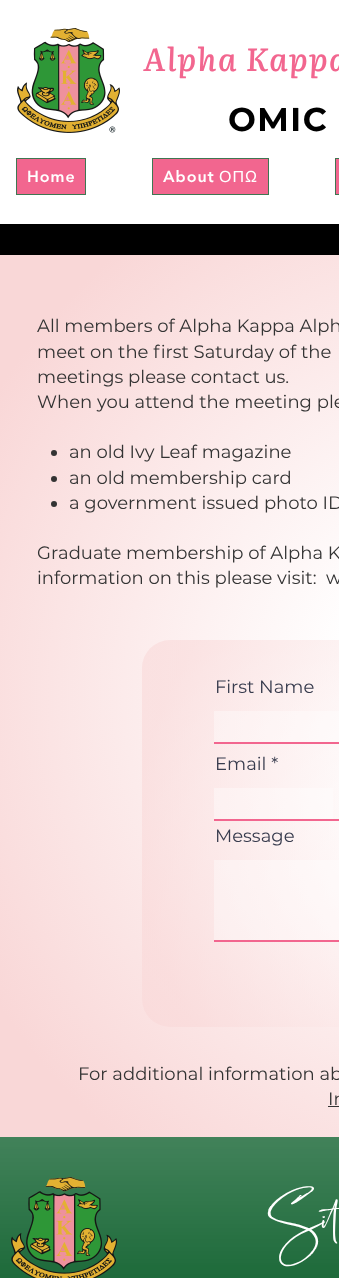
<svg xmlns="http://www.w3.org/2000/svg" width="339" height="1278" viewBox="0 0 339 1278">
  <defs>
    <radialGradient id="g1" gradientUnits="userSpaceOnUse" cx="490" cy="696" r="659"><stop offset="0.23" stop-color="rgb(255,255,255)"/><stop offset="0.88" stop-color="rgb(249,215,215)"/></radialGradient>
    <radialGradient id="g2" gradientUnits="userSpaceOnUse" cx="484" cy="834" r="393"><stop offset="0.23" stop-color="rgb(255,255,255)" stop-opacity="0.55"/><stop offset="0.88" stop-color="rgb(249,215,215)" stop-opacity="0.55"/></radialGradient>
  </defs>
  <rect width="100%" height="100%" fill="rgb(0,0,0)"/>
  <rect x="0" y="0" width="339" height="224" fill="rgb(255,255,255)"/>
  <image x="17" y="28" width="103" height="105" href="pic1.png"/>
  <text x="143" y="71" font-family="Literata" font-size="32" font-weight="600" font-style="italic" letter-spacing="1.6" fill="rgb(242,102,143)">Alpha Kappa</text>
  <text x="228" y="131" font-family="Montserrat" font-size="33" font-weight="bold" letter-spacing="1.5" fill="rgb(0,0,0)">OMIC</text>
  <rect x="16.5" y="158.5" width="69" height="36" fill="rgb(242,102,143)" stroke="rgb(63,118,82)"/>
  <text x="27" y="182" font-family="'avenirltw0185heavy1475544'" font-size="16" font-weight="900" letter-spacing="1" fill="rgb(255,255,255)">Home</text>
  <rect x="152.5" y="158.5" width="116" height="36" fill="rgb(242,102,143)" stroke="rgb(63,118,82)"/>
  <text x="163" y="182" font-family="'avenirltw0185heavy1475544'" font-size="16" font-weight="900" letter-spacing="1" fill="rgb(255,255,255)">About</text>
  <text x="219" y="182" font-family="Liberation Sans" font-size="16" letter-spacing="1" fill="rgb(255,255,255)">ΟΠΩ</text>
  <rect x="335.5" y="158.5" width="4" height="36" fill="rgb(242,102,143)" stroke="rgb(63,118,82)"/>
  <rect x="0" y="255" width="339" height="882" fill="url(#g1)"/>
  <g font-family="Montserrat" font-size="18" fill="rgb(51,51,51)">
    <text>
      <tspan x="37" y="332">All members of Alpha Kappa Alph</tspan>
      <tspan x="37" y="358">meet on the first Saturday of the</tspan>
      <tspan x="37" y="383">meetings please contact us.</tspan>
      <tspan x="37" y="408">When you attend the meeting ple</tspan>
    </text>
  </g>
  <circle cx="54" cy="453" r="3" fill="rgb(51,51,51)"/>
  <text x="69" y="458" font-family="Montserrat" font-size="18" fill="rgb(51,51,51)">an old Ivy Leaf magazine</text>
  <circle cx="54" cy="479" r="3" fill="rgb(51,51,51)"/>
  <text x="69" y="484" font-family="Montserrat" font-size="18" fill="rgb(51,51,51)">an old membership card</text>
  <circle cx="54" cy="504" r="3" fill="rgb(51,51,51)"/>
  <g font-family="Montserrat" font-size="18" fill="rgb(51,51,51)">
    <text x="69" y="509">a government issued photo ID</text>
    <text>
      <tspan x="37" y="559">Graduate membership of Alpha K</tspan>
      <tspan x="37" y="584">information on this please visit:</tspan>
    </text>
    <text x="326" y="584">w</text>
  </g>
  <rect x="142" y="640" width="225" height="387" rx="28" fill="url(#g2)"/>
  <text x="215" y="693" font-family="Montserrat" font-size="18" fill="rgb(55,59,77)">First Name</text>
  <rect x="214" y="711" width="125" height="31" fill="rgba(255,255,255,0.37)"/>
  <rect x="214" y="742" width="125" height="2" fill="rgb(242,102,143)"/>
  <text x="215" y="770" font-family="Montserrat" font-size="18" fill="rgb(55,59,77)">Email *</text>
  <rect x="214" y="788" width="119" height="31" fill="rgba(255,255,255,0.37)"/>
  <rect x="214" y="819" width="125" height="2" fill="rgb(242,102,143)"/>
  <text x="215" y="842" font-family="Montserrat" font-size="18" fill="rgb(55,59,77)">Message</text>
  <rect x="214" y="860" width="125" height="80" fill="rgba(255,255,255,0.37)"/>
  <rect x="214" y="940" width="125" height="2" fill="rgb(242,102,143)"/>
  <g font-family="Montserrat" font-size="18" fill="rgb(51,51,51)">
    <text x="78" y="1080">For additional information ab</text>
    <text x="328" y="1105">In</text>
  </g>
  <rect x="328" y="1106" width="11" height="1" fill="rgb(51,51,51)"/>
  <rect x="0" y="1137" width="339" height="141" fill="rgb(0,87,33)"/>
  <image x="0" y="1137" width="339" height="141" href="pic2.png"/>
  <image x="11" y="1177" width="106" height="101" href="pic3.png"/>
  <text x="267" y="1229" font-family="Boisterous" font-size="45" fill="rgb(255,255,255)">Sit</text>
</svg>
